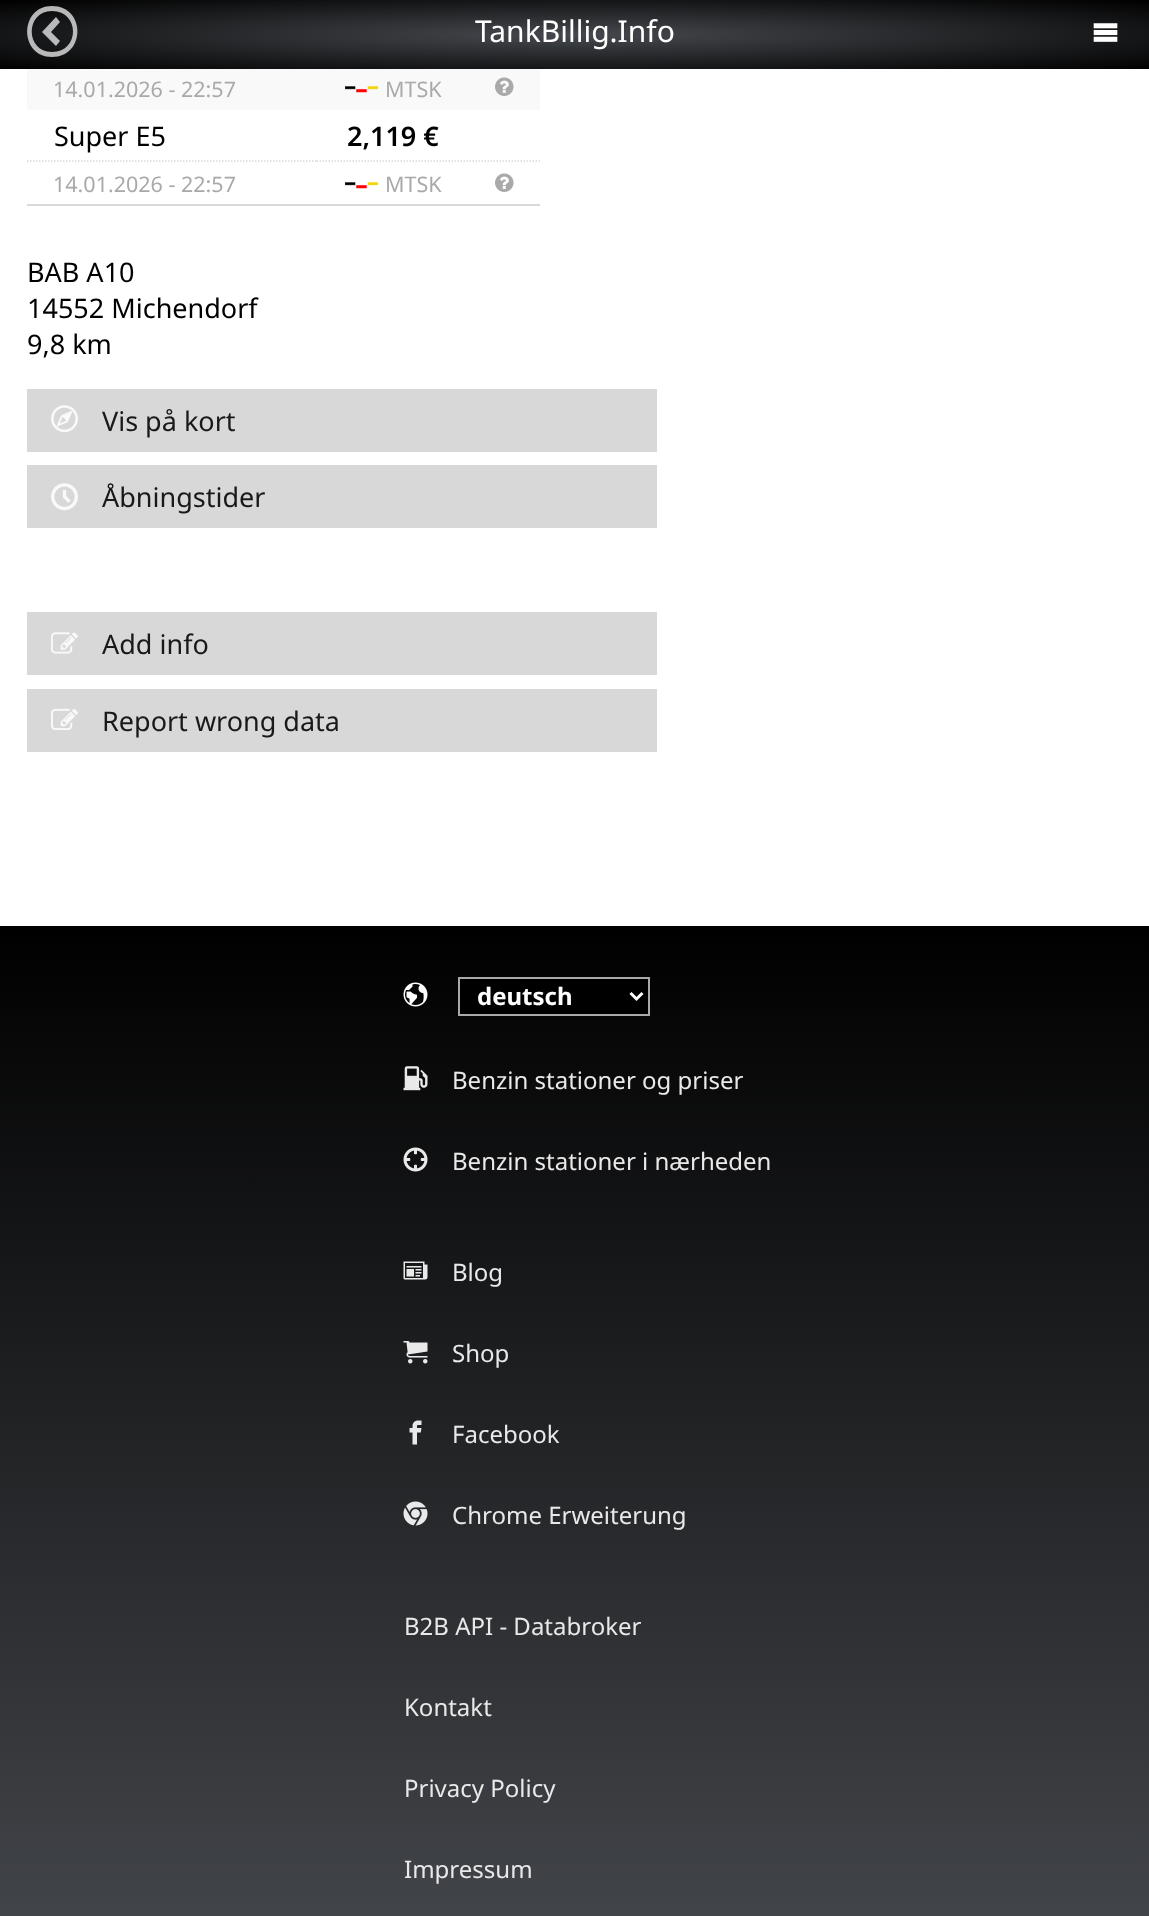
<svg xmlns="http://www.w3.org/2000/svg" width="1149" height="1916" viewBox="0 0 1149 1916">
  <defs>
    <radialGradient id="g1" gradientUnits="userSpaceOnUse" cx="0" cy="0" r="1" gradientTransform="matrix(812 0 0 49 575 35)"><stop offset="0" stop-color="rgb(69,72,77)"/><stop offset="1" stop-color="rgb(0,0,0)"/></radialGradient>
    <linearGradient id="g2" gradientUnits="userSpaceOnUse" x1="575" y1="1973" x2="575" y2="926"><stop offset="0" stop-color="rgb(69,72,77)"/><stop offset="1" stop-color="rgb(0,0,0)"/></linearGradient>
  </defs>
  <rect width="100%" height="100%" fill="rgb(255,255,255)"/>
  <rect x="0" y="0" width="1149" height="69" fill="url(#g1)"/>
  <path d="M52 57C86 57 86 6 52 6C19 6 19 57 52 57ZM52 11C80 11 80 52 52 52C25 52 25 11 52 11ZM60 22L56 17L42 32L56 46L60 41L51 32Z" fill="rgba(255,255,255,0.7)"/>
  <text x="475" y="42" font-family="Noto Sans" font-size="30" fill="rgb(255,255,255)">TankBillig.Info</text>
  <image x="1093" y="23" width="25" height="19" href="pic1.png"/>
  <rect x="27" y="204" width="513" height="2" fill="rgb(217,217,217)"/>
  <rect x="27" y="69" width="513" height="41" fill="rgb(249,249,249)"/>
  <text x="53" y="97" font-family="Noto Sans" font-size="21.5" fill="rgb(169,169,169)">14.01.2026 - 22:57</text>
  <image x="345" y="86" width="33" height="7" href="pic2.png"/>
  <text x="385" y="97" font-family="Noto Sans" font-size="21.5" fill="rgb(169,169,169)">MTSK</text>
  <image x="495" y="77" width="19" height="19" href="pic3.png"/>
  <text x="54" y="146" font-family="Noto Sans" font-size="27" fill="rgb(0,0,0)">Super E5</text>
  <text x="347" y="146" font-family="Noto Sans" font-size="27" font-weight="600" fill="rgb(0,0,0)">2,119 €</text>
  <path d="M27 161H316.5" fill="none" stroke="rgb(217,217,217)" stroke-width="1.5" stroke-dasharray="1.5 1.5"/>
  <text x="53" y="192" font-family="Noto Sans" font-size="21.5" fill="rgb(169,169,169)">14.01.2026 - 22:57</text>
  <path d="M316.5 161H469.5" fill="none" stroke="rgb(217,217,217)" stroke-width="1.5" stroke-dasharray="1.5 1.5"/>
  <image x="345" y="182" width="33" height="7" href="pic4.png"/>
  <text x="385" y="192" font-family="Noto Sans" font-size="21.5" fill="rgb(169,169,169)">MTSK</text>
  <path d="M469.5 161H540" fill="none" stroke="rgb(217,217,217)" stroke-width="1.5" stroke-dasharray="1.5 1.5"/>
  <image x="495" y="173" width="19" height="19" href="pic5.png"/>
  <g font-family="Noto Sans" font-size="27" fill="rgb(0,0,0)">
    <text>
      <tspan x="27" y="282">BAB A10</tspan>
      <tspan x="27" y="318">14552 Michendorf</tspan>
      <tspan x="27" y="354">9,8 km</tspan>
    </text>
  </g>
  <rect x="27" y="389" width="630" height="63" fill="rgb(216,216,216)"/>
  <image x="51" y="405" width="27" height="28" href="pic6.png"/>
  <text x="102" y="431" font-family="Noto Sans" font-size="27" fill="rgb(25,25,25)">Vis på kort</text>
  <rect x="27" y="465" width="630" height="63" fill="rgb(216,216,216)"/>
  <image x="51" y="483" width="27" height="28" href="pic7.png"/>
  <text x="102" y="507" font-family="Noto Sans" font-size="27" fill="rgb(25,25,25)">Åbningstider</text>
  <rect x="27" y="612" width="630" height="63" fill="rgb(216,216,216)"/>
  <image x="51" y="632" width="27" height="22" href="pic8.png"/>
  <text x="102" y="654" font-family="Noto Sans" font-size="27" fill="rgb(25,25,25)">Add info</text>
  <rect x="27" y="689" width="630" height="63" fill="rgb(216,216,216)"/>
  <image x="51" y="708" width="27" height="22" href="pic9.png"/>
  <text x="102" y="731" font-family="Noto Sans" font-size="27" fill="rgb(25,25,25)">Report wrong data</text>
  <rect x="0" y="926" width="1149" height="990" fill="url(#g2)"/>
  <image x="403" y="982" width="25" height="25" href="pic10.png"/>
  <rect x="459" y="978" width="190" height="37" fill="rgb(0,0,0)" stroke="rgb(169,169,169)" stroke-width="2"/>
  <path d="M630.5 993L636.5 999L642.5 993" fill="none" stroke="rgb(255,255,255)" stroke-width="3"/>
  <text x="477" y="1005" font-family="Noto Sans" font-size="24" font-weight="bold" fill="rgb(255,255,255)">deutsch</text>
  <image x="403" y="1066" width="25" height="25" href="pic11.png"/>
  <text x="452" y="1089" font-family="Noto Sans" font-size="24" fill="rgb(233,233,233)">Benzin stationer og priser</text>
  <image x="403" y="1147" width="25" height="25" href="pic12.png"/>
  <text x="452" y="1170" font-family="Noto Sans" font-size="24" fill="rgb(233,233,233)">Benzin stationer i nærheden</text>
  <image x="403" y="1261" width="25" height="19" href="pic13.png"/>
  <text x="452" y="1281" font-family="Noto Sans" font-size="24" fill="rgb(233,233,233)">Blog</text>
  <image x="403" y="1341" width="25" height="23" href="pic14.png"/>
  <text x="452" y="1362" font-family="Noto Sans" font-size="24" fill="rgb(233,233,233)">Shop</text>
  <image x="409" y="1420" width="13" height="25" href="pic15.png"/>
  <text x="452" y="1443" font-family="Noto Sans" font-size="24" fill="rgb(233,233,233)">Facebook</text>
  <image x="403" y="1501" width="25" height="25" href="pic16.png"/>
  <g font-family="Noto Sans" font-size="24" fill="rgb(233,233,233)">
    <text x="452" y="1524">Chrome Erweiterung</text>
    <text x="404" y="1635">B2B API - Databroker</text>
    <text x="404" y="1716">Kontakt</text>
    <text x="404" y="1797">Privacy Policy</text>
    <text x="404" y="1878">Impressum</text>
  </g>
</svg>
